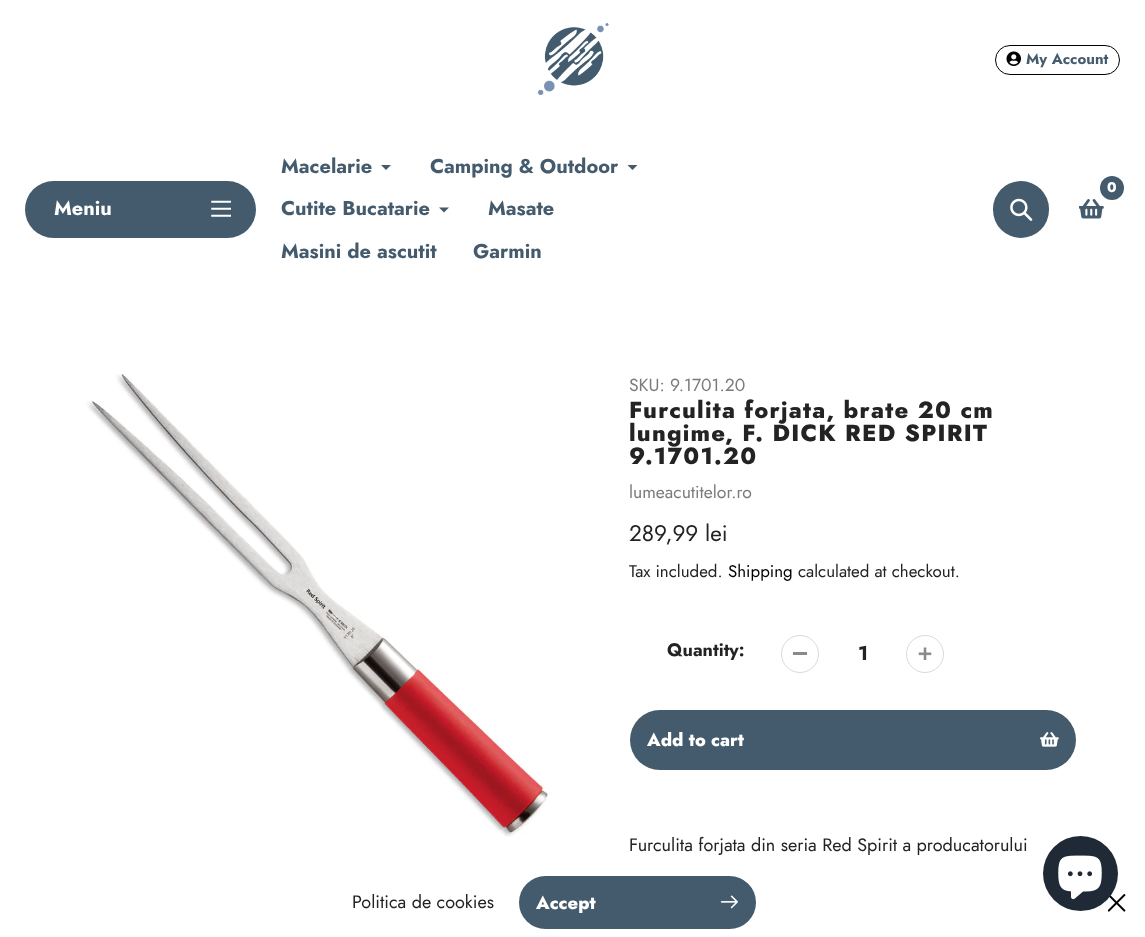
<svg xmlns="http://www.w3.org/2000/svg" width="1145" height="937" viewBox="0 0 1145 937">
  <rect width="100%" height="100%" fill="rgb(255,255,255)"/>
  <image x="537" y="22" width="72" height="73" href="pic1.png"/>
  <rect x="995.5" y="45.5" width="124" height="29" rx="14.5" fill="none" stroke="rgb(0,0,0)"/>
  <image x="1006" y="51" width="15" height="15" href="pic2.png"/>
  <text x="1026" y="64" font-family="Jost" font-size="15" font-weight="bold" fill="rgb(68,91,109)">My Account</text>
  <rect x="25" y="181" width="231" height="57" rx="28.5" fill="rgb(68,91,109)"/>
  <text x="54" y="215" font-family="Jost" font-size="20" font-weight="bold" fill="rgb(255,255,255)">Meniu</text>
  <image x="211" y="200" width="20" height="17" href="pic3.png"/>
  <text x="281" y="173" font-family="Jost" font-size="20" font-weight="bold" fill="rgb(68,91,109)">Macelarie</text>
  <path d="M391 165L386 170L381 165" fill="rgb(68,91,109)"/>
  <text x="430" y="173" font-family="Jost" font-size="20" font-weight="bold" fill="rgb(68,91,109)">Camping &amp; Outdoor</text>
  <path d="M637.5 165L632.5 170L627.5 165" fill="rgb(68,91,109)"/>
  <text x="281" y="215" font-family="Jost" font-size="20" font-weight="bold" fill="rgb(68,91,109)">Cutite Bucatarie</text>
  <path d="M449 207.5L444 212.5L439 207.5" fill="rgb(68,91,109)"/>
  <g font-family="Jost" font-size="20" font-weight="bold" fill="rgb(68,91,109)">
    <text x="488" y="215">Masate</text>
    <text x="281" y="258">Masini de ascutit</text>
    <text x="473" y="258">Garmin</text>
  </g>
  <rect x="993" y="181" width="56" height="57" rx="28" fill="rgb(68,91,109)"/>
  <image x="1010" y="198" width="23" height="23" href="pic4.png"/>
  <image x="1079" y="199" width="25" height="20" href="pic5.png"/>
  <circle cx="1112" cy="188" r="12" fill="rgb(68,91,109)"/>
  <text x="1107" y="192" font-family="Jost" font-size="14" font-weight="800" fill="rgb(255,255,255)">0</text>
  <image x="86" y="374" width="464" height="463" href="pic6.png"/>
  <text x="629" y="391" font-family="Jost" font-size="17.5" fill="rgb(123,123,123)">SKU: 9.1701.20</text>
  <g font-family="Jost" font-size="23.4" font-weight="800" letter-spacing="1.25" fill="rgb(35,35,35)">
    <text>
      <tspan x="629" y="418">Furculita forjata, brate 20 cm</tspan>
      <tspan x="629" y="441">lungime, F. DICK RED SPIRIT</tspan>
      <tspan x="629" y="464">9.1701.20</tspan>
    </text>
  </g>
  <text x="629" y="498" font-family="Jost" font-size="17.5" fill="rgb(123,123,123)">lumeacutitelor.ro</text>
  <text x="629" y="541" font-family="Jost" font-size="22.5" fill="rgb(35,35,35)">289,99 lei</text>
  <text x="629" y="577" font-family="Jost" font-size="16.9" fill="rgb(35,35,35)">Tax included.</text>
  <text x="728" y="577" font-family="Jost" font-size="16.9" fill="rgb(0,0,0)">Shipping</text>
  <text x="798" y="577" font-family="Jost" font-size="16.9" fill="rgb(35,35,35)">calculated at checkout.</text>
  <text x="667" y="656" font-family="Jost" font-size="18" font-weight="bold" fill="rgb(35,35,35)">Quantity:</text>
  <rect x="793" y="652" width="14" height="3" fill="rgb(137,137,137)"/>
  <circle cx="800" cy="654" r="18.5" fill="none" stroke="rgb(215,219,219)"/>
  <text x="858" y="660" font-family="Jost" font-size="20" font-weight="bold" fill="rgb(35,35,35)">1</text>
  <image x="918" y="647" width="14" height="13" href="pic7.png"/>
  <circle cx="925" cy="654" r="18.5" fill="none" stroke="rgb(215,219,219)"/>
  <rect x="630" y="710" width="446" height="60" rx="30" fill="rgb(68,91,109)"/>
  <text x="647" y="746" font-family="Jost" font-size="18" font-weight="800" fill="rgb(255,255,255)">Add to cart</text>
  <image x="1040" y="732" width="19" height="15" href="pic8.png"/>
  <g font-family="Jost" font-size="18" fill="rgb(35,35,35)">
    <text x="629" y="851">Furculita forjata din seria Red Spirit a producatorului</text>
    <text x="352" y="908">Politica de cookies</text>
  </g>
  <rect x="519" y="876" width="237" height="53" rx="26.5" fill="rgb(68,91,109)"/>
  <text x="536" y="909" font-family="Jost" font-size="18" font-weight="800" fill="rgb(255,255,255)">Accept</text>
  <image x="720" y="895" width="18" height="14" href="pic9.png"/>
  <image x="1108" y="894" width="18" height="18" href="pic10.png"/>
  <circle cx="1080.5" cy="873.5" r="37.5" fill="rgb(32,42,54)"/>
  <image x="1058" y="855" width="44" height="45" href="pic11.png"/>
</svg>
